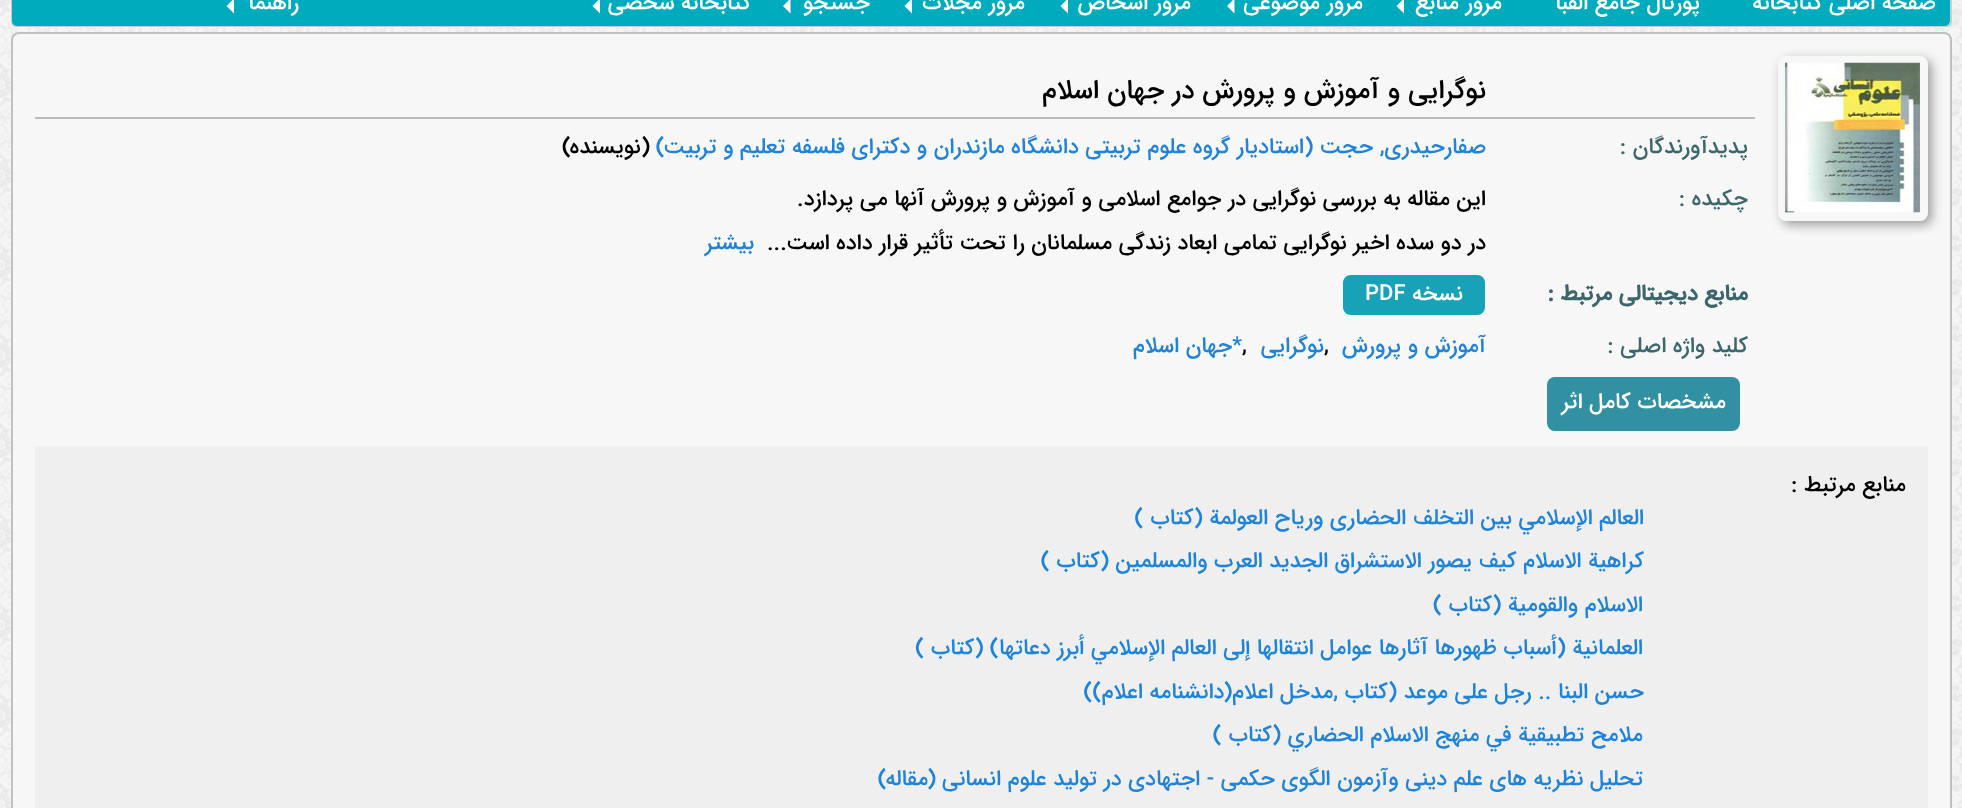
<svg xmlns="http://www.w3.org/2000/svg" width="1962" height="808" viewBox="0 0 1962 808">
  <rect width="100%" height="100%" fill="rgb(255,255,255)"/>
  <image x="0" y="0" width="1962" height="808" href="pic1.png"/>
  <rect x="12" y="-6" width="1939" height="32" rx="4" fill="rgb(255,255,255)" stroke="rgb(204,204,204)" stroke-width="2"/>
  <rect x="12" y="-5" width="1938" height="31" rx="5" fill="rgb(0,171,189)"/>
  <g font-family="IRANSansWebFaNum" font-size="22" font-weight="500" direction="rtl" fill="rgb(255,255,255)">
    <text x="1936" y="9">صفحه اصلی کتابخانه</text>
    <text x="1700" y="9">پورتال جامع الفبا</text>
    <text x="1502" y="9">مرور منابع</text>
  </g>
  <path d="M1404-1.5V13.5L1396.5 6Z" fill="rgb(255,255,255)"/>
  <text x="1363" y="9" font-family="IRANSansWebFaNum" font-size="22" font-weight="500" direction="rtl" fill="rgb(255,255,255)">مرور موضوعی</text>
  <path d="M1234.5-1.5V13.5L1227 6Z" fill="rgb(255,255,255)"/>
  <text x="1191" y="9" font-family="IRANSansWebFaNum" font-size="22" font-weight="500" direction="rtl" fill="rgb(255,255,255)">مرور اشخاص</text>
  <path d="M1068-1.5V13.5L1060.5 6Z" fill="rgb(255,255,255)"/>
  <text x="1025" y="9" font-family="IRANSansWebFaNum" font-size="22" font-weight="500" direction="rtl" fill="rgb(255,255,255)">مرور مجلات</text>
  <path d="M912-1.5V13.5L904.5 6Z" fill="rgb(255,255,255)"/>
  <text x="870" y="9" font-family="IRANSansWebFaNum" font-size="22" font-weight="500" direction="rtl" fill="rgb(255,255,255)">جستجو</text>
  <path d="M790.5-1.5V13.5L783 6Z" fill="rgb(255,255,255)"/>
  <text x="751" y="9" font-family="IRANSansWebFaNum" font-size="22" font-weight="500" direction="rtl" fill="rgb(255,255,255)">کتابخانه شخصی</text>
  <path d="M600-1.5V13.5L592.5 6Z" fill="rgb(255,255,255)"/>
  <text x="299" y="9" font-family="IRANSansWebFaNum" font-size="22" font-weight="500" direction="rtl" fill="rgb(255,255,255)">راهنما</text>
  <path d="M234-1.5V13.5L226.5 6Z" fill="rgb(255,255,255)"/>
  <rect x="12" y="33" width="1939" height="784" rx="7" fill="rgb(247,247,247)" stroke="rgb(192,192,192)" stroke-width="2"/>
  <rect x="1782" y="60" width="150" height="165" rx="8" fill="rgb(157,157,157)" filter="blur(5.5px)"/>
  <rect x="1778" y="56" width="150" height="165" rx="8" fill="rgb(247,247,247)"/>
  <image x="1785" y="62" width="135" height="151" href="pic2.png"/>
  <rect x="35" y="117" width="1720" height="2" fill="rgb(187,187,187)"/>
  <text x="1486" y="98" font-family="IRANSansWebFaNum" font-size="27" font-weight="500" direction="rtl" fill="rgb(0,0,0)">نوگرایی و آموزش و پرورش در جهان اسلام</text>
  <text x="1748" y="153" font-family="IRANSansWebFaNum" font-size="22" font-weight="500" direction="rtl" fill="rgb(59,102,109)">پدیدآورندگان :</text>
  <text x="1486" y="153" font-family="IRANSansWebFaNum" font-size="22" font-weight="500" direction="rtl" fill="rgb(31,131,217)">صفارحیدری, حجت (استادیار ﮔﺮﻭﻩ ﻋﻠﻮﻡ تربیتی ﺩﺍﻧﺸﮕﺎﻩ ﻣﺎﺯﻧﺪﺭﺍﻥ ﻭ ﺩکترای ﻓﻠﺴﻔﻪ تعلیم ﻭ ﺗﺮبیت)</text>
  <text x="650" y="153" font-family="IRANSansWebFaNum" font-size="22" font-weight="500" direction="rtl" fill="rgb(0,0,0)">(نویسنده)</text>
  <text x="1748" y="205" font-family="IRANSansWebFaNum" font-size="22" font-weight="500" direction="rtl" fill="rgb(59,102,109)">چکیده :</text>
  <g font-family="IRANSansWebFaNum" font-size="22" font-weight="500" direction="rtl" fill="rgb(0,0,0)">
    <text x="1486" y="205">این مقاله به بررسی نوگرایی در جوامع اسلامی و آموزش و پرورش آنها می پردازد.</text>
    <text x="1486" y="249">در دو سده اخیر نوگرایی تمامی ابعاد زندگی مسلمانان را تحت تأثیر قرار داده است</text>
  </g>
  <text x="767" y="249" font-family="IRANSansWebFaNum" font-size="22" font-weight="500" fill="rgb(0,0,0)">...</text>
  <text x="754" y="249" font-family="IRANSansWebFaNum" font-size="22" font-weight="500" direction="rtl" fill="rgb(31,131,217)">بیشتر</text>
  <text x="1748" y="300" font-family="IRANSansWebFaNum" font-size="22" font-weight="bold" direction="rtl" fill="rgb(59,102,109)">منابع دیجیتالی مرتبط :</text>
  <path d="M1406 275H1477C1481.5 275 1485 278.5 1485 283V307C1485 311.5 1481.5 315 1477 315H1406Z" fill="rgb(23,162,184)"/>
  <text x="1463" y="300" font-family="IRANSansWebFaNum" font-size="22" font-weight="500" direction="rtl" fill="rgb(255,255,255)">نسخه</text>
  <path d="M1351 275H1406V315H1351C1346.5 315 1343 311.5 1343 307V283C1343 278.5 1346.5 275 1351 275Z" fill="rgb(23,162,184)"/>
  <text x="1365" y="300" font-family="IRANSansWebFaNum" font-size="22" font-weight="500" fill="rgb(255,255,255)">PDF</text>
  <text x="1748" y="352" font-family="IRANSansWebFaNum" font-size="22" font-weight="500" direction="rtl" fill="rgb(59,102,109)">کلید واژه اصلی :</text>
  <text x="1486" y="352" font-family="IRANSansWebFaNum" font-size="22" font-weight="500" direction="rtl" fill="rgb(31,131,217)">آموزش و پرورش</text>
  <text x="1324" y="352" font-family="IRANSansWebFaNum" font-size="22" font-weight="500" fill="rgb(0,0,0)">,</text>
  <text x="1324" y="352" font-family="IRANSansWebFaNum" font-size="22" font-weight="500" direction="rtl" fill="rgb(31,131,217)">نوگرایی</text>
  <text x="1242" y="352" font-family="IRANSansWebFaNum" font-size="22" font-weight="500" fill="rgb(0,0,0)">,</text>
  <text x="1242" y="352" font-family="IRANSansWebFaNum" font-size="22" font-weight="500" direction="rtl" fill="rgb(31,131,217)">*جهان اسلام</text>
  <rect x="1547" y="377" width="193" height="54" rx="8" fill="rgb(49,144,162)"/>
  <text x="1726" y="408" font-family="IRANSansWebFaNum" font-size="22" font-weight="500" direction="rtl" fill="rgb(255,255,255)">مشخصات کامل اثر</text>
  <rect x="35" y="446" width="1893" height="362" fill="rgb(239,239,239)"/>
  <text x="1906" y="491" font-family="IRANSansWebFaNum" font-size="22" font-weight="500" direction="rtl" fill="rgb(0,0,0)">منابع مرتبط</text>
  <text x="1791" y="491" font-family="IRANSansWebFaNum" font-size="22" font-weight="500" fill="rgb(0,0,0)">:</text>
  <g font-family="IRANSansWebFaNum" font-size="22" font-weight="500" direction="rtl" fill="rgb(31,131,217)">
    <text>
      <tspan x="1644" y="524">العالم الإسلامي بين التخلف الحضارى ورياح العولمة (کتاب )</tspan>
      <tspan x="1644" y="567">كراهية الاسلام كيف يصور الاستشراق الجديد العرب والمسلمين (کتاب )</tspan>
    </text>
    <text>
      <tspan x="1643" y="611">الاسلام والقومية (کتاب )</tspan>
      <tspan x="1643" y="654">العلمانية (أسباب ظهورها آثارها عوامل انتقالها إلى العالم الإسلامي أبرز دعاتها) (کتاب )</tspan>
    </text>
    <text x="1644" y="698">حسن البنا .. رجل على موعد (کتاب ,مدخل اعلام(دانشنامه اعلام))</text>
    <text x="1643" y="741">ملامح تطبيقية في منهج الاسلام الحضاري (کتاب )</text>
    <text x="1643" y="785">تحلیل نظریه های علم دینی وآزمون الگوی حکمی - اجتهادی در تولید علوم انسانی</text>
    <text x="936" y="785">(مقاله)</text>
  </g>
</svg>
